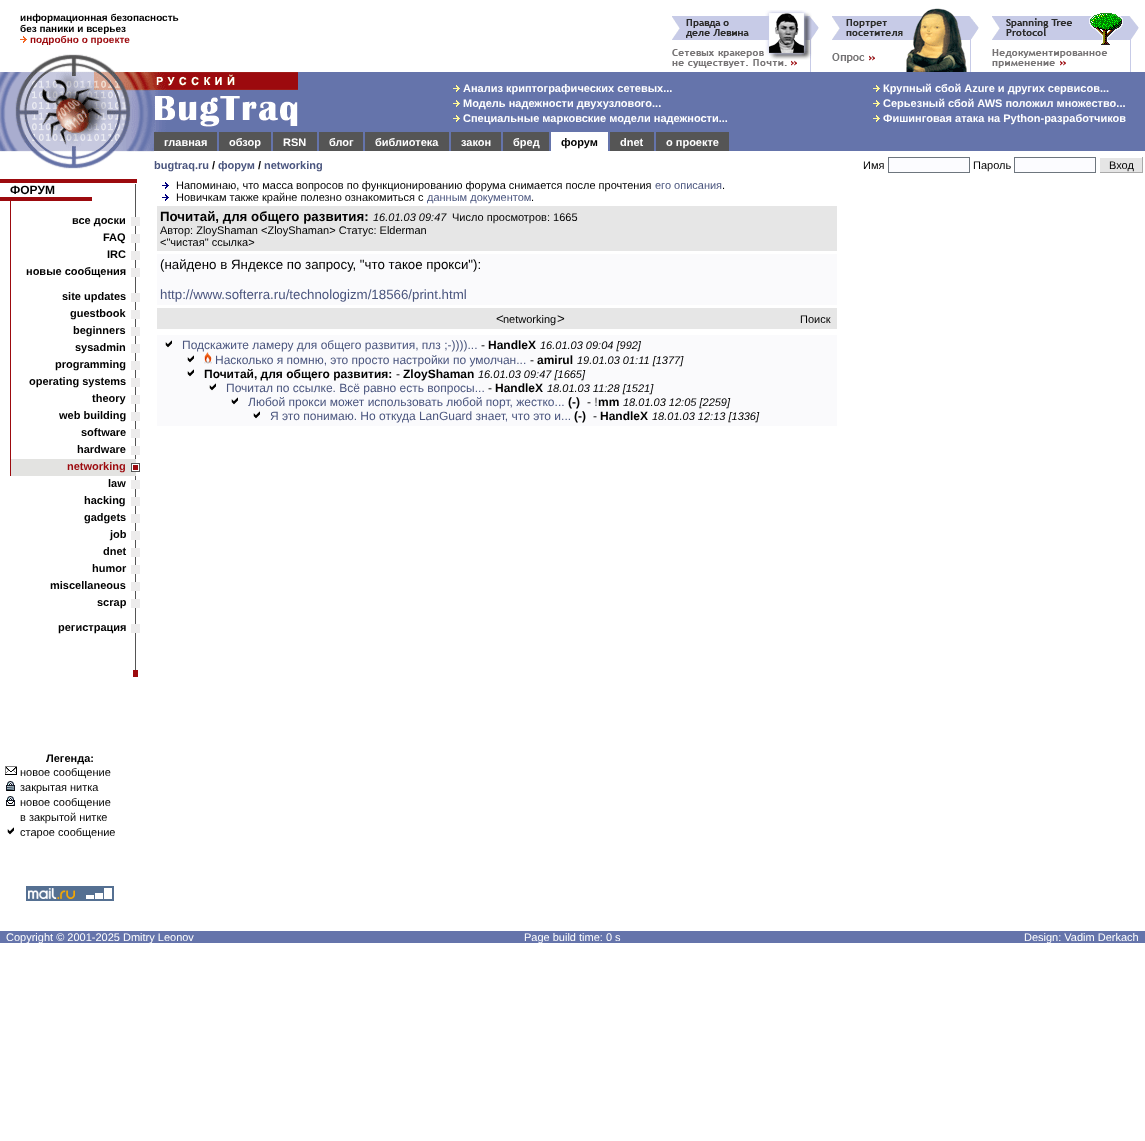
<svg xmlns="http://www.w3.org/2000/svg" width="1145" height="1141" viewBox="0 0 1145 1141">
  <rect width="100%" height="100%" fill="rgb(255,255,255)"/>
  <g font-family="Liberation Sans" font-size="10" font-weight="bold" fill="rgb(0,0,0)">
    <text>
      <tspan x="20" y="21">информационная безопасность</tspan>
      <tspan x="20" y="32">без паники и всерьез</tspan>
    </text>
  </g>
  <image x="20" y="36" width="7" height="7" href="pic1.png"/>
  <text x="30" y="43" font-family="Liberation Sans" font-size="10" font-weight="bold" fill="rgb(156,10,14)">подробно о проекте</text>
  <image x="672" y="10" width="147" height="62" href="pic2.png"/>
  <image x="832" y="8" width="147" height="64" href="pic3.png"/>
  <image x="992" y="13" width="147" height="59" href="pic4.png"/>
  <image x="31" y="54" width="84" height="18" href="pic5.png"/>
  <rect x="298" y="72" width="847" height="60" fill="rgb(101,116,171)"/>
  <image x="0" y="72" width="154" height="79" href="pic6.png"/>
  <image x="0" y="151" width="154" height="18" href="pic7.png"/>
  <image x="154" y="72" width="144" height="60" href="pic8.png"/>
  <image x="453" y="85" width="7" height="7" href="pic9.png"/>
  <text x="463" y="92" font-family="Liberation Sans" font-size="11" font-weight="bold" fill="rgb(255,255,255)">Анализ криптографических сетевых...</text>
  <image x="453" y="100" width="7" height="7" href="pic9.png"/>
  <text x="463" y="107" font-family="Liberation Sans" font-size="11" font-weight="bold" fill="rgb(255,255,255)">Модель надежности двухузлового...</text>
  <image x="453" y="115" width="7" height="7" href="pic9.png"/>
  <text x="463" y="122" font-family="Liberation Sans" font-size="11" font-weight="bold" fill="rgb(255,255,255)">Специальные марковские модели надежности...</text>
  <image x="873" y="85" width="7" height="7" href="pic9.png"/>
  <text x="883" y="92" font-family="Liberation Sans" font-size="11" font-weight="bold" fill="rgb(255,255,255)">Крупный сбой Azure и других сервисов...</text>
  <image x="873" y="100" width="7" height="7" href="pic9.png"/>
  <text x="883" y="107" font-family="Liberation Sans" font-size="11" font-weight="bold" fill="rgb(255,255,255)">Серьезный сбой AWS положил множество...</text>
  <image x="873" y="115" width="7" height="7" href="pic9.png"/>
  <text x="883" y="122" font-family="Liberation Sans" font-size="11" font-weight="bold" fill="rgb(255,255,255)">Фишинговая атака на Python-разработчиков</text>
  <rect x="217" y="132" width="928" height="19" fill="rgb(101,116,171)"/>
  <rect x="154" y="132" width="63" height="19" fill="rgb(85,85,85)"/>
  <text x="164" y="146" font-family="Liberation Sans" font-size="11" font-weight="bold" fill="rgb(255,255,255)">главная</text>
  <rect x="219" y="132" width="52" height="19" fill="rgb(85,85,85)"/>
  <text x="229" y="146" font-family="Liberation Sans" font-size="11" font-weight="bold" fill="rgb(255,255,255)">обзор</text>
  <rect x="273" y="132" width="44" height="19" fill="rgb(85,85,85)"/>
  <text x="283" y="146" font-family="Liberation Sans" font-size="11" font-weight="bold" fill="rgb(255,255,255)">RSN</text>
  <rect x="319" y="132" width="44" height="19" fill="rgb(85,85,85)"/>
  <text x="329" y="146" font-family="Liberation Sans" font-size="11" font-weight="bold" fill="rgb(255,255,255)">блог</text>
  <rect x="365" y="132" width="84" height="19" fill="rgb(85,85,85)"/>
  <text x="375" y="146" font-family="Liberation Sans" font-size="11" font-weight="bold" fill="rgb(255,255,255)">библиотека</text>
  <rect x="451" y="132" width="50" height="19" fill="rgb(85,85,85)"/>
  <text x="461" y="146" font-family="Liberation Sans" font-size="11" font-weight="bold" fill="rgb(255,255,255)">закон</text>
  <rect x="503" y="132" width="46" height="19" fill="rgb(85,85,85)"/>
  <text x="513" y="146" font-family="Liberation Sans" font-size="11" font-weight="bold" fill="rgb(255,255,255)">бред</text>
  <rect x="551" y="132" width="57" height="19" fill="rgb(255,255,255)"/>
  <text x="561" y="146" font-family="Liberation Sans" font-size="11" font-weight="bold" fill="rgb(0,0,0)">форум</text>
  <rect x="610" y="132" width="44" height="19" fill="rgb(85,85,85)"/>
  <text x="620" y="146" font-family="Liberation Sans" font-size="11" font-weight="bold" fill="rgb(255,255,255)">dnet</text>
  <rect x="656" y="132" width="73" height="19" fill="rgb(85,85,85)"/>
  <text x="666" y="146" font-family="Liberation Sans" font-size="11" font-weight="bold" fill="rgb(255,255,255)">о проекте</text>
  <text x="154" y="169" font-family="Liberation Sans" font-size="11" font-weight="bold" fill="rgb(74,85,126)">bugtraq.ru</text>
  <text x="212" y="169" font-family="Liberation Sans" font-size="11" font-weight="bold" fill="rgb(0,0,0)">/</text>
  <text x="218" y="169" font-family="Liberation Sans" font-size="11" font-weight="bold" fill="rgb(74,85,126)">форум</text>
  <text x="258" y="169" font-family="Liberation Sans" font-size="11" font-weight="bold" fill="rgb(0,0,0)">/</text>
  <text x="264" y="169" font-family="Liberation Sans" font-size="11" font-weight="bold" fill="rgb(74,85,126)">networking</text>
  <text x="863" y="169" font-family="Liberation Sans" font-size="11" fill="rgb(0,0,0)">Имя</text>
  <rect x="888.5" y="157.5" width="81" height="15" fill="rgb(252,252,255)" stroke="rgb(110,118,126)"/>
  <text x="973" y="169" font-family="Liberation Sans" font-size="11" fill="rgb(0,0,0)">Пароль</text>
  <rect x="1014.5" y="157.5" width="81" height="15" fill="rgb(252,252,255)" stroke="rgb(110,118,126)"/>
  <rect x="1100" y="158" width="42" height="14" fill="rgb(229,229,229)"/>
  <rect x="1142" y="157" width="1" height="16" fill="rgb(170,170,170)"/>
  <rect x="1099" y="172" width="44" height="1" fill="rgb(170,170,170)"/>
  <rect x="1099" y="172" width="1" height="1" fill="rgb(255,255,255)"/>
  <text x="1109" y="169" font-family="Liberation Sans" font-size="11" fill="rgb(0,0,0)">Вход</text>
  <rect x="0" y="179" width="140" height="4" fill="rgb(156,10,14)"/>
  <rect x="137" y="179" width="3" height="4" fill="rgb(255,255,255)"/>
  <text x="10" y="194" font-family="Liberation Sans" font-size="12" font-weight="bold" fill="rgb(0,0,0)">ФОРУМ</text>
  <rect x="135" y="183" width="1" height="276" fill="rgb(85,85,85)"/>
  <rect x="135" y="183" width="1" height="1" fill="rgb(255,255,255)"/>
  <rect x="0" y="197" width="92" height="4" fill="rgb(156,10,14)"/>
  <rect x="10" y="201" width="1" height="80" fill="rgb(156,10,14)"/>
  <text x="72" y="224" font-family="Liberation Sans" font-size="11" font-weight="bold" fill="rgb(0,0,0)">все доски</text>
  <rect x="131" y="217" width="9" height="9" fill="rgb(237,236,236)"/>
  <text x="103" y="241" font-family="Liberation Sans" font-size="11" font-weight="bold" fill="rgb(0,0,0)">FAQ</text>
  <rect x="131" y="234" width="9" height="9" fill="rgb(237,236,236)"/>
  <text x="107" y="258" font-family="Liberation Sans" font-size="11" font-weight="bold" fill="rgb(0,0,0)">IRC</text>
  <rect x="131" y="251" width="9" height="9" fill="rgb(237,236,236)"/>
  <text x="26" y="275" font-family="Liberation Sans" font-size="11" font-weight="bold" fill="rgb(0,0,0)">новые сообщения</text>
  <rect x="131" y="268" width="9" height="9" fill="rgb(237,236,236)"/>
  <rect x="10" y="281" width="1" height="195" fill="rgb(156,10,14)"/>
  <text x="62" y="300" font-family="Liberation Sans" font-size="11" font-weight="bold" fill="rgb(0,0,0)">site updates</text>
  <rect x="131" y="293" width="9" height="9" fill="rgb(237,236,236)"/>
  <text x="70" y="317" font-family="Liberation Sans" font-size="11" font-weight="bold" fill="rgb(0,0,0)">guestbook</text>
  <rect x="131" y="310" width="9" height="9" fill="rgb(237,236,236)"/>
  <text x="73" y="334" font-family="Liberation Sans" font-size="11" font-weight="bold" fill="rgb(0,0,0)">beginners</text>
  <rect x="131" y="327" width="9" height="9" fill="rgb(237,236,236)"/>
  <text x="75" y="351" font-family="Liberation Sans" font-size="11" font-weight="bold" fill="rgb(0,0,0)">sysadmin</text>
  <rect x="131" y="344" width="9" height="9" fill="rgb(237,236,236)"/>
  <text x="55" y="368" font-family="Liberation Sans" font-size="11" font-weight="bold" fill="rgb(0,0,0)">programming</text>
  <rect x="131" y="361" width="9" height="9" fill="rgb(237,236,236)"/>
  <text x="29" y="385" font-family="Liberation Sans" font-size="11" font-weight="bold" fill="rgb(0,0,0)">operating systems</text>
  <rect x="131" y="378" width="9" height="9" fill="rgb(237,236,236)"/>
  <text x="92" y="402" font-family="Liberation Sans" font-size="11" font-weight="bold" fill="rgb(0,0,0)">theory</text>
  <rect x="131" y="395" width="9" height="9" fill="rgb(237,236,236)"/>
  <text x="59" y="419" font-family="Liberation Sans" font-size="11" font-weight="bold" fill="rgb(0,0,0)">web building</text>
  <rect x="131" y="412" width="9" height="9" fill="rgb(237,236,236)"/>
  <text x="81" y="436" font-family="Liberation Sans" font-size="11" font-weight="bold" fill="rgb(0,0,0)">software</text>
  <rect x="131" y="429" width="9" height="9" fill="rgb(237,236,236)"/>
  <text x="77" y="453" font-family="Liberation Sans" font-size="11" font-weight="bold" fill="rgb(0,0,0)">hardware</text>
  <rect x="131" y="446" width="9" height="9" fill="rgb(237,236,236)"/>
  <rect x="11" y="459" width="125" height="17" fill="rgb(227,227,225)"/>
  <text x="67" y="470" font-family="Liberation Sans" font-size="11" font-weight="bold" fill="rgb(156,10,14)">networking</text>
  <image x="131" y="463" width="9" height="9" href="pic10.png"/>
  <text x="108" y="487" font-family="Liberation Sans" font-size="11" font-weight="bold" fill="rgb(0,0,0)">law</text>
  <rect x="135" y="476" width="1" height="201" fill="rgb(85,85,85)"/>
  <rect x="131" y="480" width="9" height="9" fill="rgb(237,236,236)"/>
  <text x="84" y="504" font-family="Liberation Sans" font-size="11" font-weight="bold" fill="rgb(0,0,0)">hacking</text>
  <rect x="131" y="497" width="9" height="9" fill="rgb(237,236,236)"/>
  <text x="84" y="521" font-family="Liberation Sans" font-size="11" font-weight="bold" fill="rgb(0,0,0)">gadgets</text>
  <rect x="131" y="514" width="9" height="9" fill="rgb(237,236,236)"/>
  <text x="110" y="538" font-family="Liberation Sans" font-size="11" font-weight="bold" fill="rgb(0,0,0)">job</text>
  <rect x="131" y="531" width="9" height="9" fill="rgb(237,236,236)"/>
  <text x="103" y="555" font-family="Liberation Sans" font-size="11" font-weight="bold" fill="rgb(0,0,0)">dnet</text>
  <rect x="131" y="548" width="9" height="9" fill="rgb(237,236,236)"/>
  <text x="92" y="572" font-family="Liberation Sans" font-size="11" font-weight="bold" fill="rgb(0,0,0)">humor</text>
  <rect x="131" y="565" width="9" height="9" fill="rgb(237,236,236)"/>
  <text x="50" y="589" font-family="Liberation Sans" font-size="11" font-weight="bold" fill="rgb(0,0,0)">miscellaneous</text>
  <rect x="131" y="582" width="9" height="9" fill="rgb(237,236,236)"/>
  <text x="97" y="606" font-family="Liberation Sans" font-size="11" font-weight="bold" fill="rgb(0,0,0)">scrap</text>
  <rect x="131" y="599" width="9" height="9" fill="rgb(237,236,236)"/>
  <text x="58" y="631" font-family="Liberation Sans" font-size="11" font-weight="bold" fill="rgb(0,0,0)">регистрация</text>
  <rect x="131" y="624" width="9" height="9" fill="rgb(237,236,236)"/>
  <rect x="133" y="670" width="5" height="7" fill="rgb(156,10,14)"/>
  <text x="46" y="762" font-family="Liberation Sans" font-size="11" font-weight="bold" fill="rgb(0,0,0)">Легенда:</text>
  <image x="5" y="766" width="12" height="9" href="pic11.png"/>
  <text x="20" y="776" font-family="Liberation Sans" font-size="11" fill="rgb(0,0,0)">новое сообщение</text>
  <image x="6" y="781" width="9" height="10" href="pic12.png"/>
  <text x="20" y="791" font-family="Liberation Sans" font-size="11" fill="rgb(0,0,0)">закрытая нитка</text>
  <image x="6" y="796" width="9" height="10" href="pic13.png"/>
  <g font-family="Liberation Sans" font-size="11" fill="rgb(0,0,0)">
    <text>
      <tspan x="20" y="806">новое сообщение</tspan>
      <tspan x="20" y="821">в закрытой нитке</tspan>
    </text>
  </g>
  <image x="7" y="827" width="7" height="8" href="pic14.png"/>
  <text x="20" y="836" font-family="Liberation Sans" font-size="11" fill="rgb(0,0,0)">старое сообщение</text>
  <image x="162" y="182" width="7" height="7" href="pic15.png"/>
  <text x="176" y="189" font-family="Liberation Sans" font-size="11" fill="rgb(0,0,0)">Напоминаю, что масса вопросов по функционированию форума снимается после прочтения</text>
  <text x="655" y="189" font-family="Liberation Sans" font-size="11" fill="rgb(74,85,126)">его описания</text>
  <text x="722" y="189" font-family="Liberation Sans" font-size="11" fill="rgb(0,0,0)">.</text>
  <image x="162" y="194" width="7" height="7" href="pic15.png"/>
  <text x="176" y="201" font-family="Liberation Sans" font-size="11" fill="rgb(0,0,0)">Новичкам также крайне полезно ознакомиться с</text>
  <text x="427" y="201" font-family="Liberation Sans" font-size="11" fill="rgb(74,85,126)">данным документом</text>
  <text x="531" y="201" font-family="Liberation Sans" font-size="11" fill="rgb(0,0,0)">.</text>
  <rect x="157" y="206" width="680" height="45" fill="rgb(230,230,230)"/>
  <text x="160" y="221" font-family="Liberation Sans" font-size="13.3" font-weight="bold" fill="rgb(0,0,0)">Почитай, для общего развития:</text>
  <text x="373" y="221" font-family="Liberation Sans" font-size="11" font-style="italic" fill="rgb(0,0,0)">16.01.03 09:47</text>
  <g font-family="Liberation Sans" font-size="11" fill="rgb(0,0,0)">
    <text x="452" y="221">Число просмотров: 1665</text>
    <text>
      <tspan x="160" y="234">Автор: ZloyShaman &lt;ZloyShaman&gt; Статус: Elderman</tspan>
      <tspan x="160" y="246">&lt;"чистая" ссылка&gt;</tspan>
    </text>
  </g>
  <rect x="157" y="254" width="680" height="51" fill="rgb(250,250,252)"/>
  <text x="160" y="269" font-family="Liberation Sans" font-size="13.3" fill="rgb(0,0,0)">(найдено в Яндексе по запросу, "что такое прокси"):</text>
  <text x="160" y="299" font-family="Liberation Sans" font-size="13.3" fill="rgb(74,85,126)">http://www.softerra.ru/technologizm/18566/print.html</text>
  <rect x="157" y="308" width="680" height="21" fill="rgb(230,230,230)"/>
  <text x="496" y="323" font-family="Liberation Sans" font-size="13.3" fill="rgb(0,0,0)">&lt;</text>
  <text x="503" y="323" font-family="Liberation Sans" font-size="11" fill="rgb(0,0,0)">networking</text>
  <text x="557" y="323" font-family="Liberation Sans" font-size="13.3" fill="rgb(0,0,0)">&gt;</text>
  <text x="800" y="323" font-family="Liberation Sans" font-size="11" fill="rgb(0,0,0)">Поиск</text>
  <rect x="157" y="335" width="680" height="91" fill="rgb(250,250,252)"/>
  <image x="165" y="340" width="7" height="8" href="pic16.png"/>
  <text x="182" y="349" font-family="Liberation Sans" font-size="12" fill="rgb(74,85,126)">Подскажите ламеру для общего развития, плз ;-))))...</text>
  <text x="481" y="349" font-family="Liberation Sans" font-size="12" fill="rgb(0,0,0)">-</text>
  <text x="488" y="349" font-family="Liberation Sans" font-size="12" font-weight="bold" fill="rgb(0,0,0)">HandleX</text>
  <text x="540" y="349" font-family="Liberation Sans" font-size="11" font-style="italic" fill="rgb(0,0,0)">16.01.03 09:04 [992]</text>
  <image x="187" y="355" width="7" height="8" href="pic16.png"/>
  <image x="204" y="352" width="8" height="12" href="pic17.png"/>
  <text x="215" y="364" font-family="Liberation Sans" font-size="12" fill="rgb(74,85,126)">Насколько я помню, это просто настройки по умолчан...</text>
  <text x="530" y="364" font-family="Liberation Sans" font-size="12" fill="rgb(0,0,0)">-</text>
  <text x="537" y="364" font-family="Liberation Sans" font-size="12" font-weight="bold" fill="rgb(0,0,0)">amirul</text>
  <text x="577" y="364" font-family="Liberation Sans" font-size="11" font-style="italic" fill="rgb(0,0,0)">19.01.03 01:11 [1377]</text>
  <image x="187" y="369" width="7" height="8" href="pic16.png"/>
  <text x="204" y="378" font-family="Liberation Sans" font-size="12" font-weight="bold" fill="rgb(0,0,0)">Почитай, для общего развития:</text>
  <text x="396" y="378" font-family="Liberation Sans" font-size="12" fill="rgb(0,0,0)">-</text>
  <text x="403" y="378" font-family="Liberation Sans" font-size="12" font-weight="bold" fill="rgb(0,0,0)">ZloyShaman</text>
  <text x="478" y="378" font-family="Liberation Sans" font-size="11" font-style="italic" fill="rgb(0,0,0)">16.01.03 09:47 [1665]</text>
  <image x="209" y="383" width="7" height="8" href="pic16.png"/>
  <text x="226" y="392" font-family="Liberation Sans" font-size="12" fill="rgb(74,85,126)">Почитал по ссылке. Всё равно есть вопросы...</text>
  <text x="488" y="392" font-family="Liberation Sans" font-size="12" fill="rgb(0,0,0)">-</text>
  <text x="495" y="392" font-family="Liberation Sans" font-size="12" font-weight="bold" fill="rgb(0,0,0)">HandleX</text>
  <text x="547" y="392" font-family="Liberation Sans" font-size="11" font-style="italic" fill="rgb(0,0,0)">18.01.03 11:28 [1521]</text>
  <image x="231" y="397" width="7" height="8" href="pic16.png"/>
  <text x="248" y="406" font-family="Liberation Sans" font-size="12" fill="rgb(74,85,126)">Любой прокси может использовать любой порт, жестко...</text>
  <text x="568" y="406" font-family="Liberation Sans" font-size="12" font-weight="bold" fill="rgb(0,0,0)">(-)</text>
  <text x="587" y="406" font-family="Liberation Sans" font-size="12" fill="rgb(0,0,0)">-</text>
  <text x="594" y="406" font-family="Liberation Sans" font-size="12" font-weight="bold" fill="rgb(128,128,128)">!</text>
  <text x="598" y="406" font-family="Liberation Sans" font-size="12" font-weight="bold" fill="rgb(0,0,0)">mm</text>
  <text x="623" y="406" font-family="Liberation Sans" font-size="11" font-style="italic" fill="rgb(0,0,0)">18.01.03 12:05 [2259]</text>
  <image x="253" y="411" width="7" height="8" href="pic16.png"/>
  <text x="270" y="420" font-family="Liberation Sans" font-size="12" fill="rgb(74,85,126)">Я это понимаю. Но откуда LanGuard знает, что это и...</text>
  <text x="574" y="420" font-family="Liberation Sans" font-size="12" font-weight="bold" fill="rgb(0,0,0)">(-)</text>
  <text x="593" y="420" font-family="Liberation Sans" font-size="12" fill="rgb(0,0,0)">-</text>
  <text x="600" y="420" font-family="Liberation Sans" font-size="12" font-weight="bold" fill="rgb(0,0,0)">HandleX</text>
  <text x="652" y="420" font-family="Liberation Sans" font-size="11" font-style="italic" fill="rgb(0,0,0)">18.01.03 12:13 [1336]</text>
  <image x="26" y="886" width="88" height="15" href="pic18.png"/>
  <rect x="0" y="931" width="1145" height="12" fill="rgb(101,116,171)"/>
  <g font-family="Liberation Sans" font-size="11" fill="rgb(255,255,255)">
    <text x="6" y="941">Copyright © 2001-2025 Dmitry Leonov</text>
    <text x="524" y="941">Page build time: 0 s</text>
    <text x="1024" y="941">Design: Vadim Derkach</text>
  </g>
</svg>
